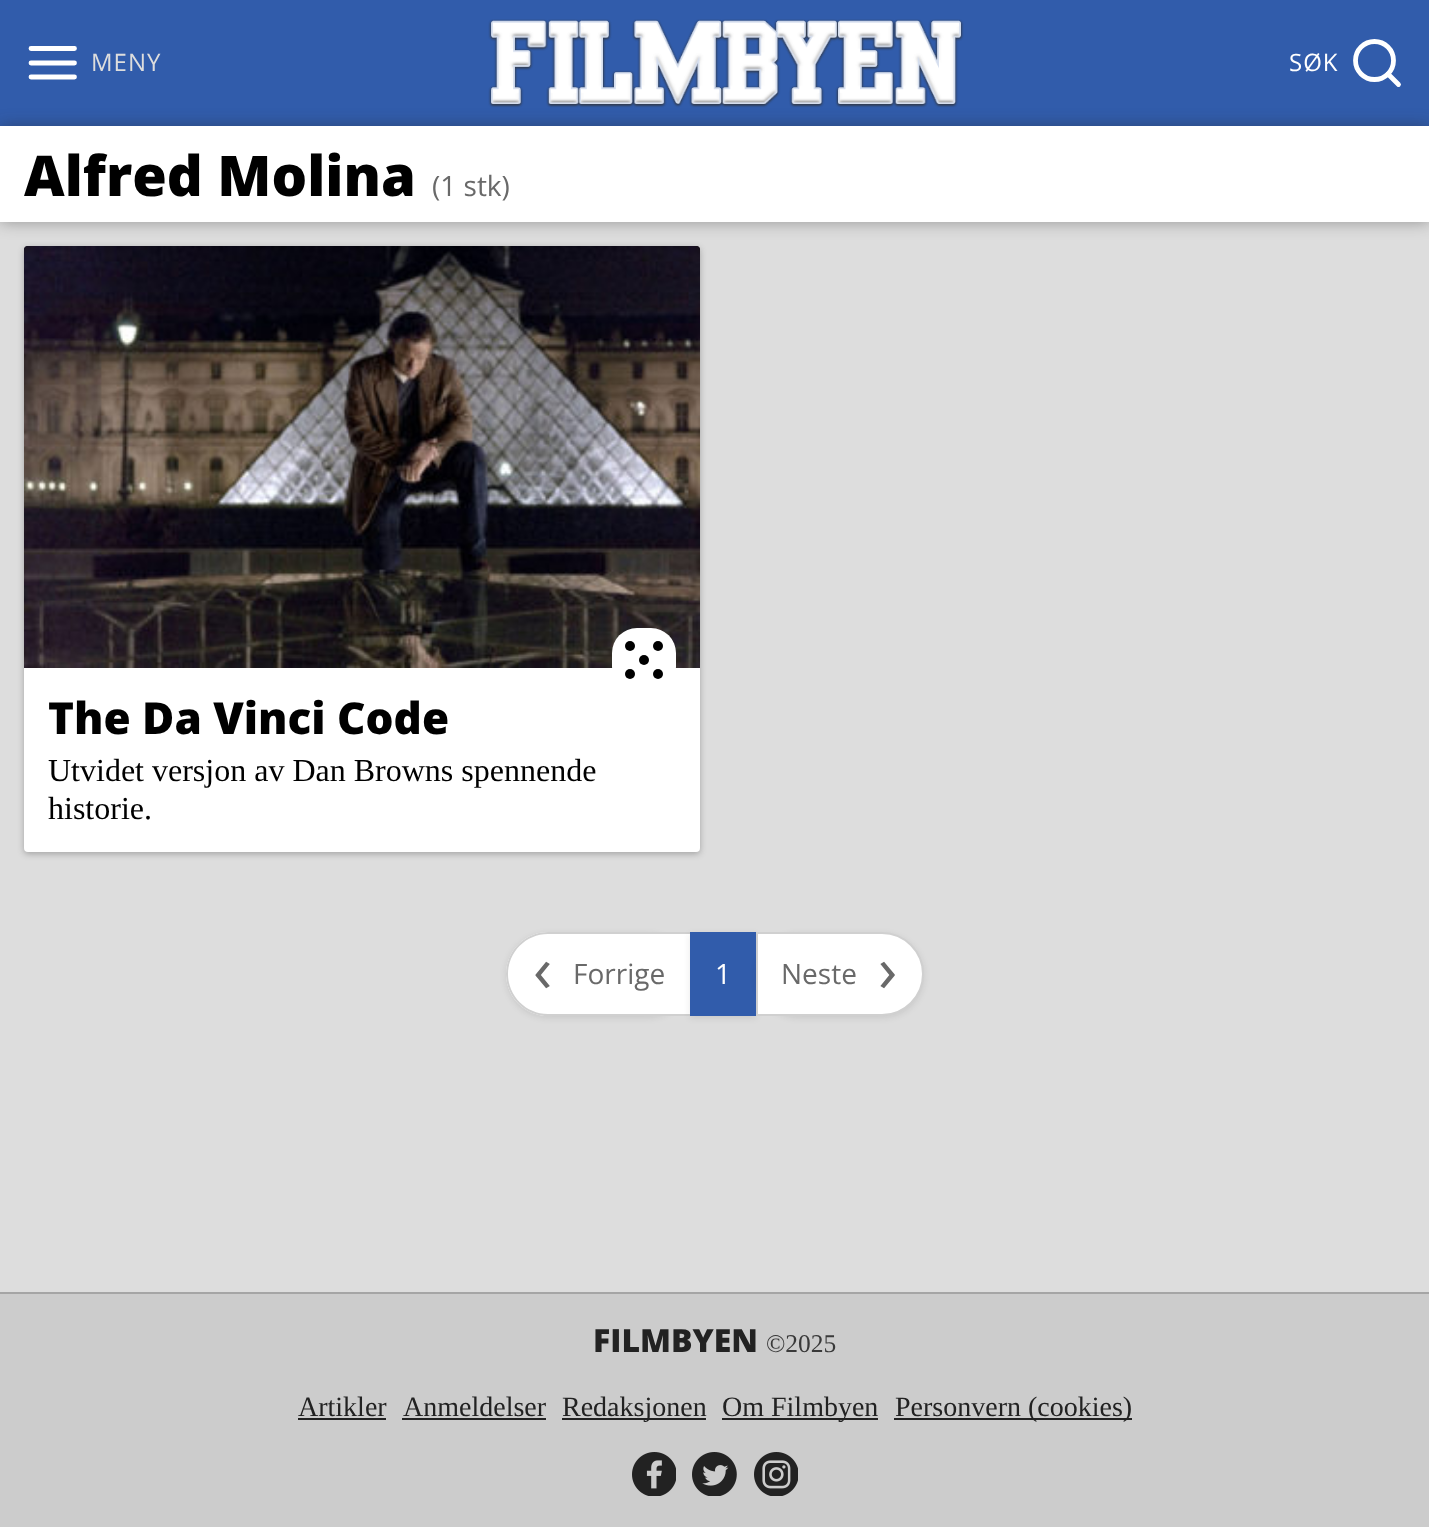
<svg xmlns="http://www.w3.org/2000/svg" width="1429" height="1527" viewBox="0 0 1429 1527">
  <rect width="100%" height="100%" fill="rgb(221,221,221)"/>
  <rect x="0" y="0" width="1429" height="126" fill="rgb(49,92,171)"/>
  <path d="M31 63H74.5M31 48.5H74.5M31 77H74.5" fill="none" stroke="rgb(255,255,255)" stroke-width="4.8" stroke-linecap="round" stroke-linejoin="round"/>
  <text x="91" y="71" font-family="Open Sans" font-size="24" letter-spacing="1" fill="rgb(221,221,221)">MENY</text>
  <image x="488" y="19" width="476" height="89" href="pic1.png"/>
  <text x="1289" y="71" font-family="Open Sans" font-size="24" letter-spacing="1" fill="rgb(255,255,255)">SØK</text>
  <circle cx="1374.5" cy="60.5" r="19" fill="none" stroke="rgb(255,255,255)" stroke-width="4.8"/>
  <path d="M1398.5 84.5L1388 74" fill="none" stroke="rgb(255,255,255)" stroke-width="4.8" stroke-linecap="round" stroke-linejoin="round"/>
  <rect x="24" y="248" width="676" height="606" rx="4" fill="rgba(34,34,34,0.3)" filter="blur(3px)"/>
  <rect x="24" y="246" width="676" height="606" rx="4" fill="rgb(255,255,255)"/>
  <image x="24" y="246" width="676" height="4" href="pic2.png"/>
  <image x="24" y="246" width="676" height="422" href="pic3.png"/>
  <rect x="0" y="126" width="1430" height="96" fill="rgba(34,34,34,0.4)" filter="blur(8px)"/>
  <rect x="0" y="126" width="1429" height="96" fill="rgb(255,255,255)"/>
  <text x="24" y="196" font-family="Open Sans" font-size="56" font-weight="800" fill="rgb(0,0,0)">Alfred Molina</text>
  <text x="432" y="196" font-family="Open Sans" font-size="28" fill="rgb(105,105,105)">(1 stk)</text>
  <rect x="612" y="628" width="64" height="64" rx="25" fill="rgb(255,255,255)"/>
  <circle cx="630" cy="646" r="5" fill="rgb(0,0,0)"/>
  <circle cx="630" cy="674" r="5" fill="rgb(0,0,0)"/>
  <circle cx="658" cy="674" r="5" fill="rgb(0,0,0)"/>
  <circle cx="658" cy="646" r="5" fill="rgb(0,0,0)"/>
  <circle cx="644" cy="660" r="5" fill="rgb(0,0,0)"/>
  <text x="48" y="734" font-family="Open Sans" font-size="44" font-weight="800" fill="rgb(0,0,0)">The Da Vinci Code</text>
  <g font-family="Liberation Serif" font-size="32" fill="rgb(0,0,0)">
    <text>
      <tspan x="48" y="781">Utvidet versjon av Dan Browns spennende</tspan>
      <tspan x="48" y="819">historie.</tspan>
    </text>
  </g>
  <rect x="506" y="934" width="184" height="84" rx="42" fill="rgba(34,34,34,0.1)" filter="blur(3px)"/>
  <path d="M548 932H690V1016H548C525 1016 506 997 506 974C506 951 525 932 548 932Z" fill="rgb(255,255,255)"/>
  <path d="M548 932H690V1016H548C525 1016 506 997 506 974C506 951 525 932 548 932ZM548 934H690V1014H548C526 1014 508 996 508 974C508 952 526 934 548 934Z" fill="rgb(208,208,208)" fill-rule="evenodd"/>
  <text x="533" y="992" font-family="Open Sans" font-size="64" fill="rgb(105,105,105)">‹</text>
  <text x="573" y="984" font-family="Open Sans" font-size="28" fill="rgb(105,105,105)">Forrige</text>
  <rect x="690" y="934" width="66" height="84" fill="rgba(34,34,34,0.1)" filter="blur(3px)"/>
  <rect x="690" y="932" width="66" height="84" fill="rgb(49,92,171)"/>
  <text x="715" y="984" font-family="Open Sans" font-size="28" fill="rgb(255,255,255)">1</text>
  <rect x="756" y="934" width="168" height="84" rx="42" fill="rgba(34,34,34,0.1)" filter="blur(3px)"/>
  <path d="M757 933H882C904.5 933 923 951.5 923 974C923 996.5 904.5 1015 882 1015H757Z" fill="rgb(255,255,255)" stroke="rgb(208,208,208)" stroke-width="2"/>
  <text x="781" y="984" font-family="Open Sans" font-size="28" fill="rgb(105,105,105)">Neste</text>
  <text x="878" y="992" font-family="Open Sans" font-size="64" fill="rgb(105,105,105)">›</text>
  <rect x="0" y="1294" width="1429" height="233" fill="rgb(204,204,204)"/>
  <rect x="0" y="1292" width="1429" height="2" fill="rgb(165,165,165)"/>
  <text x="593" y="1352" font-family="Open Sans" font-size="32" font-weight="800" fill="rgb(34,34,34)">FILMBYEN</text>
  <text x="766" y="1352" font-family="Liberation Serif" font-size="25.5" fill="rgb(57,57,57)">©2025</text>
  <text x="298" y="1416" font-family="Liberation Serif" font-size="28" fill="rgb(34,34,34)">Artikler</text>
  <rect x="298" y="1418" width="88" height="2" fill="rgb(34,34,34)"/>
  <text x="403" y="1416" font-family="Liberation Serif" font-size="28" fill="rgb(34,34,34)">Anmeldelser</text>
  <rect x="402" y="1418" width="144" height="2" fill="rgb(34,34,34)"/>
  <rect x="562" y="1418" width="144" height="2" fill="rgb(34,34,34)"/>
  <text x="562" y="1416" font-family="Liberation Serif" font-size="28" fill="rgb(34,34,34)">Redaksjonen</text>
  <rect x="722" y="1418" width="156" height="2" fill="rgb(34,34,34)"/>
  <text x="722" y="1416" font-family="Liberation Serif" font-size="28" fill="rgb(34,34,34)">Om Filmbyen</text>
  <rect x="894" y="1418" width="238" height="2" fill="rgb(34,34,34)"/>
  <text x="895" y="1416" font-family="Liberation Serif" font-size="28" fill="rgb(34,34,34)">Personvern (cookies)</text>
  <image x="632" y="1452" width="44" height="44" href="pic4.png"/>
  <image x="692" y="1452" width="45" height="44" href="pic5.png"/>
  <image x="754" y="1452" width="44" height="44" href="pic6.png"/>
</svg>
